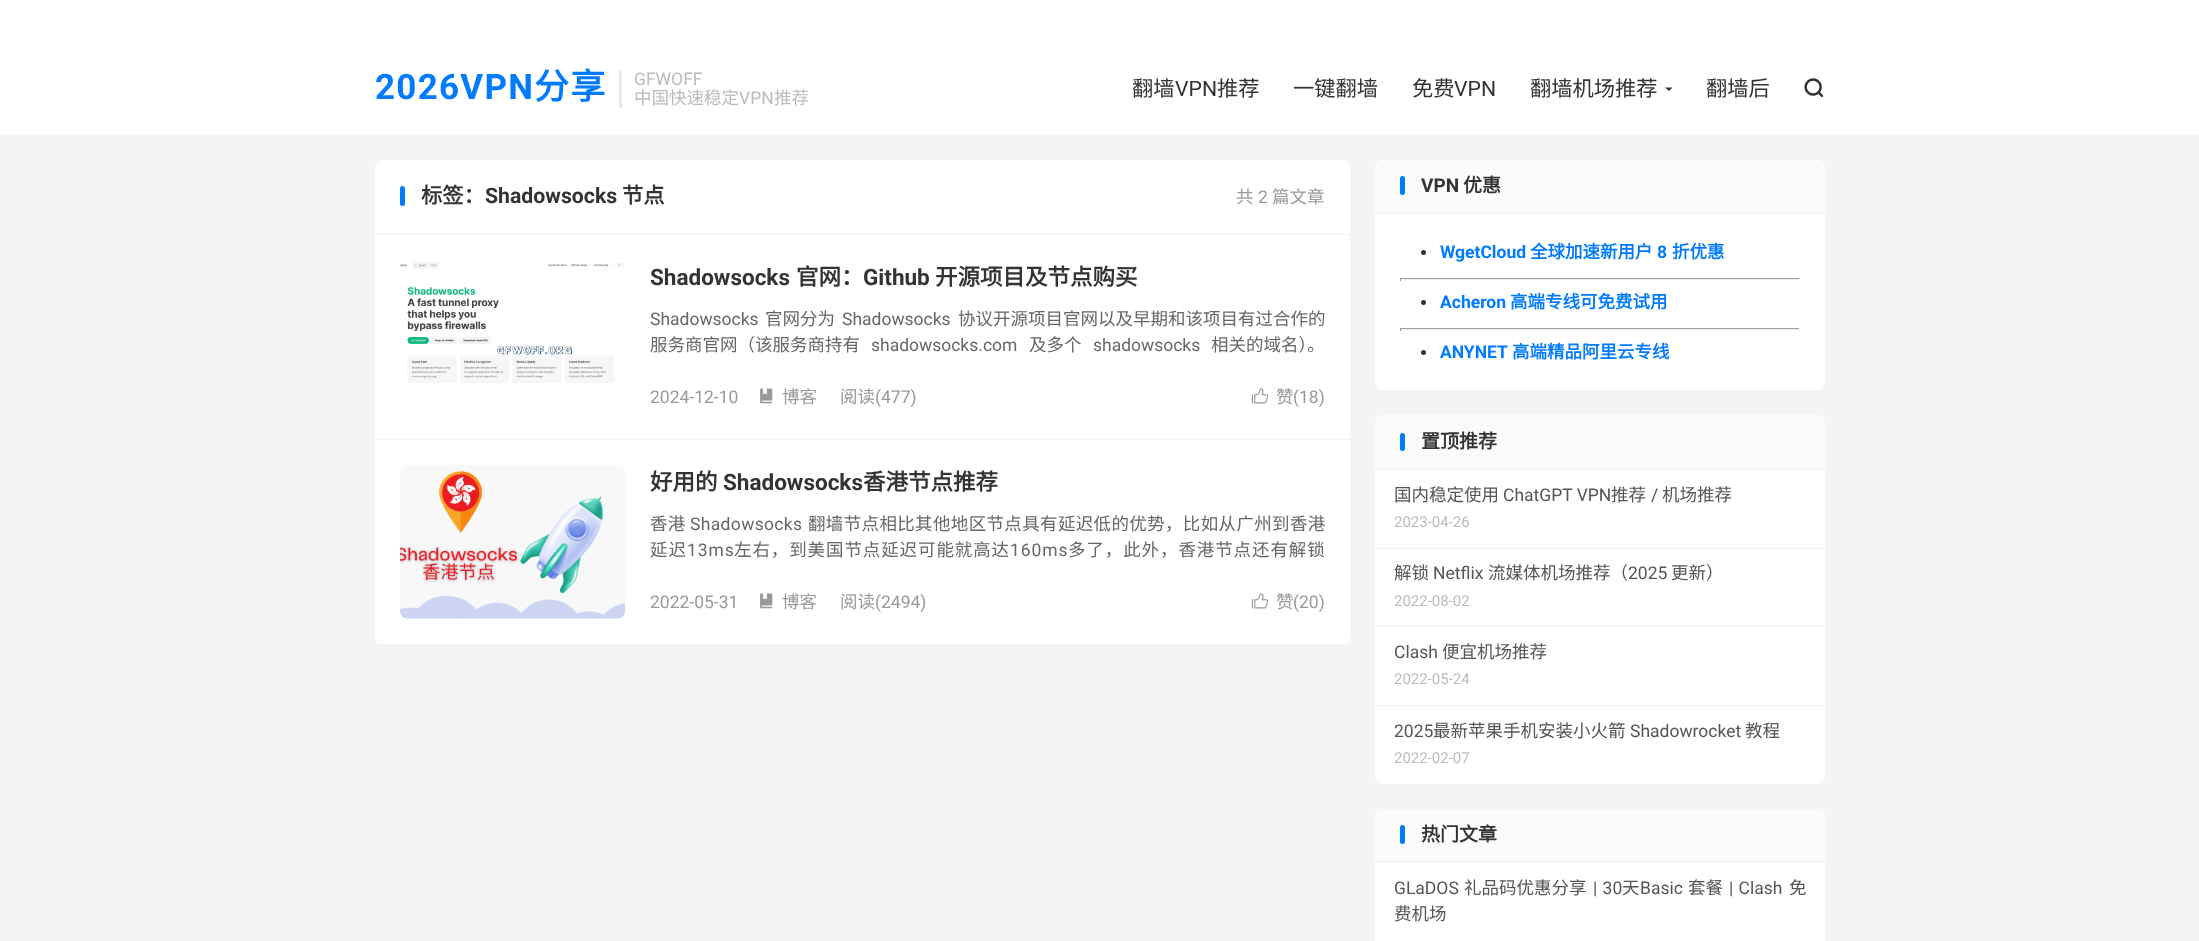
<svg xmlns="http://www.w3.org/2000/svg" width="2199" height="941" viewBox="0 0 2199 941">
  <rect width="100%" height="100%" fill="rgb(244,244,244)"/>
  <rect x="0" y="0" width="2199" height="135" fill="rgb(255,255,255)"/>
  <text x="375" y="99" font-family="Roboto" font-size="35" font-weight="bold" letter-spacing="1.25" fill="rgb(0,123,255)">2026VPN</text>
  <text x="534" y="99" font-family="Noto Sans CJK SC" font-size="35" font-weight="bold" letter-spacing="1.25" fill="rgb(0,123,255)">分享</text>
  <rect x="619" y="70" width="3" height="38" fill="rgb(234,234,234)"/>
  <text x="634" y="85" font-family="Roboto" font-size="17.5" fill="rgb(187,187,187)">GFWOFF</text>
  <text x="634" y="104" font-family="Noto Sans CJK SC" font-size="17.5" fill="rgb(187,187,187)">中国快速稳定</text>
  <text x="739" y="104" font-family="Roboto" font-size="17.5" fill="rgb(187,187,187)">VPN</text>
  <text x="774" y="104" font-family="Noto Sans CJK SC" font-size="17.5" fill="rgb(187,187,187)">推荐</text>
  <text x="1132" y="96" font-family="Noto Sans CJK SC" font-size="21.25" fill="rgb(51,51,51)">翻墙</text>
  <text x="1175" y="96" font-family="Roboto" font-size="21.25" fill="rgb(51,51,51)">VPN</text>
  <g font-family="Noto Sans CJK SC" font-size="21.25" fill="rgb(51,51,51)">
    <text x="1217" y="96">推荐</text>
    <text x="1293" y="96">一键翻墙</text>
    <text x="1412" y="96">免费</text>
  </g>
  <text x="1454" y="96" font-family="Roboto" font-size="21.25" fill="rgb(51,51,51)">VPN</text>
  <text x="1530" y="96" font-family="Noto Sans CJK SC" font-size="21.25" fill="rgb(51,51,51)">翻墙机场推荐</text>
  <path d="M1665 87.5H1672.5L1669 91Z" fill="rgb(51,51,51)"/>
  <text x="1706" y="96" font-family="Noto Sans CJK SC" font-size="21.25" fill="rgb(51,51,51)">翻墙后</text>
  <image x="1804" y="78" width="20" height="19" href="pic1.png"/>
  <path d="M383 160H1342C1346.5 160 1350 163.5 1350 168V235H375V168C375 163.5 378.5 160 383 160Z" fill="rgb(255,255,255)"/>
  <rect x="375" y="234" width="975" height="1" fill="rgb(243,243,243)"/>
  <rect x="400" y="186" width="5" height="20" rx="2.5" fill="rgb(0,123,255)"/>
  <text x="421" y="203" font-family="Noto Sans CJK SC" font-size="21.25" font-weight="bold" fill="rgb(51,51,51)">标签：</text>
  <text x="485" y="203" font-family="Roboto" font-size="21.25" font-weight="bold" fill="rgb(51,51,51)">Shadowsocks</text>
  <text x="622" y="203" font-family="Noto Sans CJK SC" font-size="21.25" font-weight="bold" fill="rgb(51,51,51)">节点</text>
  <text x="1236" y="203" font-family="Noto Sans CJK SC" font-size="17.5" fill="rgb(153,153,153)">共</text>
  <text x="1258" y="203" font-family="Roboto" font-size="17.5" fill="rgb(153,153,153)">2</text>
  <text x="1272" y="203" font-family="Noto Sans CJK SC" font-size="17.5" fill="rgb(153,153,153)">篇文章</text>
  <rect x="375" y="235" width="975" height="204" fill="rgb(255,255,255)"/>
  <image x="400" y="261" width="225" height="122" href="pic2.png"/>
  <text x="650" y="285" font-family="Roboto" font-size="22.5" font-weight="bold" fill="rgb(51,51,51)">Shadowsocks</text>
  <text x="796" y="285" font-family="Noto Sans CJK SC" font-size="22.5" font-weight="bold" fill="rgb(51,51,51)">官网：</text>
  <text x="863" y="285" font-family="Roboto" font-size="22.5" font-weight="bold" fill="rgb(51,51,51)">Github</text>
  <text x="935" y="285" font-family="Noto Sans CJK SC" font-size="22.5" font-weight="bold" fill="rgb(51,51,51)">开源项目及节点购买</text>
  <text x="650" y="325" font-family="Roboto" font-size="17.5" fill="rgb(102,102,102)">Shadowsocks</text>
  <text x="765" y="325" font-family="Noto Sans CJK SC" font-size="17.5" fill="rgb(102,102,102)">官网分为</text>
  <text x="842" y="325" font-family="Roboto" font-size="17.5" fill="rgb(102,102,102)">Shadowsocks</text>
  <g font-family="Noto Sans CJK SC" font-size="17.5" fill="rgb(102,102,102)">
    <text x="958" y="325">协议开源项目官网以及早期和该项目有过合作的</text>
    <text x="650" y="351">服务商官网（该服务商持有</text>
  </g>
  <text x="871" y="351" font-family="Roboto" font-size="17.5" fill="rgb(102,102,102)">shadowsocks.com</text>
  <text x="1029" y="351" font-family="Noto Sans CJK SC" font-size="17.5" fill="rgb(102,102,102)">及多个</text>
  <text x="1093" y="351" font-family="Roboto" font-size="17.5" fill="rgb(102,102,102)">shadowsocks</text>
  <text x="1211" y="351" font-family="Noto Sans CJK SC" font-size="17.5" fill="rgb(102,102,102)">相关的域名）。</text>
  <text x="650" y="403" font-family="Roboto" font-size="17.5" fill="rgb(153,153,153)">2024-12-10</text>
  <image x="760" y="388" width="13" height="16" href="pic3.png"/>
  <g font-family="Noto Sans CJK SC" font-size="17.5" fill="rgb(153,153,153)">
    <text x="782" y="403">博客</text>
    <text x="840" y="403">阅读</text>
  </g>
  <text x="875" y="403" font-family="Roboto" font-size="17.5" fill="rgb(153,153,153)">(477)</text>
  <image x="1251" y="388" width="18" height="16" href="pic4.png"/>
  <text x="1276" y="403" font-family="Noto Sans CJK SC" font-size="17.5" fill="rgb(153,153,153)">赞</text>
  <text x="1293" y="403" font-family="Roboto" font-size="17.5" fill="rgb(153,153,153)">(18)</text>
  <path d="M375 440H1350V637C1350 641.5 1346.5 645 1342 645H383C378.5 645 375 641.5 375 637Z" fill="rgb(255,255,255)"/>
  <rect x="379" y="644" width="967" height="1" fill="rgb(243,243,243)"/>
  <image x="400" y="465" width="225" height="154" href="pic5.png"/>
  <text x="650" y="490" font-family="Noto Sans CJK SC" font-size="22.5" font-weight="bold" fill="rgb(51,51,51)">好用的</text>
  <text x="723" y="490" font-family="Roboto" font-size="22.5" font-weight="bold" fill="rgb(51,51,51)">Shadowsocks</text>
  <text x="863" y="490" font-family="Noto Sans CJK SC" font-size="22.5" font-weight="bold" fill="rgb(51,51,51)">香港节点推荐</text>
  <text x="650" y="530" font-family="Noto Sans CJK SC" font-size="17.5" letter-spacing="0.35" fill="rgb(102,102,102)">香港</text>
  <text x="690" y="530" font-family="Roboto" font-size="17.5" letter-spacing="0.35" fill="rgb(102,102,102)">Shadowsocks</text>
  <text x="808" y="530" font-family="Noto Sans CJK SC" font-size="17.5" letter-spacing="0.35" fill="rgb(102,102,102)">翻墙节点相比其他地区节点具有延迟低的优势，比如从广州到香港</text>
  <text x="650" y="556" font-family="Noto Sans CJK SC" font-size="17.5" letter-spacing="0.9" fill="rgb(102,102,102)">延迟</text>
  <text x="687" y="556" font-family="Roboto" font-size="17.5" letter-spacing="0.9" fill="rgb(102,102,102)">13ms</text>
  <text x="734" y="556" font-family="Noto Sans CJK SC" font-size="17.5" letter-spacing="0.9" fill="rgb(102,102,102)">左右，到美国节点延迟可能就高达</text>
  <text x="1010" y="556" font-family="Roboto" font-size="17.5" letter-spacing="0.9" fill="rgb(102,102,102)">160ms</text>
  <text x="1068" y="556" font-family="Noto Sans CJK SC" font-size="17.5" letter-spacing="0.9" fill="rgb(102,102,102)">多了，此外，香港节点还有解锁</text>
  <text x="650" y="608" font-family="Roboto" font-size="17.5" fill="rgb(153,153,153)">2022-05-31</text>
  <image x="760" y="593" width="13" height="16" href="pic3.png"/>
  <g font-family="Noto Sans CJK SC" font-size="17.5" fill="rgb(153,153,153)">
    <text x="782" y="608">博客</text>
    <text x="840" y="608">阅读</text>
  </g>
  <text x="875" y="608" font-family="Roboto" font-size="17.5" fill="rgb(153,153,153)">(2494)</text>
  <image x="1251" y="593" width="18" height="16" href="pic4.png"/>
  <text x="1276" y="608" font-family="Noto Sans CJK SC" font-size="17.5" fill="rgb(153,153,153)">赞</text>
  <text x="1293" y="608" font-family="Roboto" font-size="17.5" fill="rgb(153,153,153)">(20)</text>
  <rect x="1375" y="160" width="450" height="230" rx="8" fill="rgb(255,255,255)"/>
  <path d="M1383 160H1817C1821.5 160 1825 163.5 1825 168V214H1375V168C1375 163.5 1378.5 160 1383 160Z" fill="rgb(251,251,251)"/>
  <rect x="1375" y="213" width="450" height="1" fill="rgb(243,243,243)"/>
  <rect x="1400" y="176" width="5" height="19" rx="2.5" fill="rgb(0,123,255)"/>
  <text x="1421" y="192" font-family="Roboto" font-size="19" font-weight="bold" fill="rgb(51,51,51)">VPN</text>
  <text x="1463" y="192" font-family="Noto Sans CJK SC" font-size="19" font-weight="bold" fill="rgb(51,51,51)">优惠</text>
  <circle cx="1423.5" cy="252.5" r="2.5" fill="rgb(51,51,51)"/>
  <text x="1440" y="258" font-family="Roboto" font-size="17.5" font-weight="bold" fill="rgb(0,123,255)">WgetCloud</text>
  <text x="1530" y="258" font-family="Noto Sans CJK SC" font-size="17.5" font-weight="bold" fill="rgb(0,123,255)">全球加速新用户</text>
  <text x="1657" y="258" font-family="Roboto" font-size="17.5" font-weight="bold" fill="rgb(0,123,255)">8</text>
  <text x="1672" y="258" font-family="Noto Sans CJK SC" font-size="17.5" font-weight="bold" fill="rgb(0,123,255)">折优惠</text>
  <rect x="1400" y="278" width="400" height="1" fill="rgb(159,159,159)"/>
  <rect x="1799" y="278" width="1" height="3" fill="rgb(238,238,238)"/>
  <rect x="1400" y="279" width="400" height="1" fill="rgb(238,238,238)"/>
  <rect x="1400" y="278" width="1" height="3" fill="rgb(159,159,159)"/>
  <circle cx="1423.5" cy="302.5" r="2.5" fill="rgb(51,51,51)"/>
  <text x="1440" y="308" font-family="Roboto" font-size="17.5" font-weight="bold" fill="rgb(0,123,255)">Acheron</text>
  <text x="1510" y="308" font-family="Noto Sans CJK SC" font-size="17.5" font-weight="bold" fill="rgb(0,123,255)">高端专线可免费试用</text>
  <rect x="1400" y="328" width="400" height="1" fill="rgb(159,159,159)"/>
  <rect x="1799" y="328" width="1" height="3" fill="rgb(238,238,238)"/>
  <rect x="1400" y="329" width="400" height="1" fill="rgb(238,238,238)"/>
  <rect x="1400" y="328" width="1" height="3" fill="rgb(159,159,159)"/>
  <circle cx="1423.5" cy="352.5" r="2.5" fill="rgb(51,51,51)"/>
  <text x="1440" y="358" font-family="Roboto" font-size="17.5" font-weight="bold" fill="rgb(0,123,255)">ANYNET</text>
  <text x="1512" y="358" font-family="Noto Sans CJK SC" font-size="17.5" font-weight="bold" fill="rgb(0,123,255)">高端精品阿里云专线</text>
  <rect x="1375" y="415" width="450" height="369" rx="8" fill="rgb(255,255,255)"/>
  <path d="M1383 415H1817C1821.5 415 1825 418.5 1825 423V470H1375V423C1375 418.5 1378.5 415 1383 415Z" fill="rgb(251,251,251)"/>
  <rect x="1375" y="469" width="450" height="1" fill="rgb(243,243,243)"/>
  <rect x="1400" y="433" width="5" height="18" rx="2.5" fill="rgb(0,123,255)"/>
  <text x="1421" y="448" font-family="Noto Sans CJK SC" font-size="19" font-weight="bold" fill="rgb(51,51,51)">置顶推荐</text>
  <rect x="1375" y="548" width="450" height="1" fill="rgb(243,243,243)"/>
  <text x="1394" y="501" font-family="Noto Sans CJK SC" font-size="17.5" fill="rgb(85,85,85)">国内稳定使用</text>
  <text x="1503" y="501" font-family="Roboto" font-size="17.5" fill="rgb(85,85,85)">ChatGPT VPN</text>
  <text x="1611" y="501" font-family="Noto Sans CJK SC" font-size="17.5" fill="rgb(85,85,85)">推荐</text>
  <text x="1651" y="501" font-family="Roboto" font-size="17.5" fill="rgb(85,85,85)">/</text>
  <text x="1662" y="501" font-family="Noto Sans CJK SC" font-size="17.5" fill="rgb(85,85,85)">机场推荐</text>
  <text x="1394" y="527" font-family="Roboto" font-size="15" fill="rgb(187,187,187)">2023-04-26</text>
  <rect x="1375" y="626" width="450" height="1" fill="rgb(243,243,243)"/>
  <text x="1394" y="579" font-family="Noto Sans CJK SC" font-size="17.5" fill="rgb(85,85,85)">解锁</text>
  <text x="1433" y="579" font-family="Roboto" font-size="17.5" fill="rgb(85,85,85)">Netflix</text>
  <text x="1488" y="579" font-family="Noto Sans CJK SC" font-size="17.5" fill="rgb(85,85,85)">流媒体机场推荐（</text>
  <text x="1628" y="579" font-family="Roboto" font-size="17.5" fill="rgb(85,85,85)">2025</text>
  <text x="1671" y="579" font-family="Noto Sans CJK SC" font-size="17.5" fill="rgb(85,85,85)">更新）</text>
  <text x="1394" y="606" font-family="Roboto" font-size="15" fill="rgb(187,187,187)">2022-08-02</text>
  <rect x="1375" y="705" width="450" height="1" fill="rgb(243,243,243)"/>
  <text x="1394" y="658" font-family="Roboto" font-size="17.5" fill="rgb(85,85,85)">Clash</text>
  <text x="1442" y="658" font-family="Noto Sans CJK SC" font-size="17.5" fill="rgb(85,85,85)">便宜机场推荐</text>
  <text x="1394" y="684" font-family="Roboto" font-size="15" fill="rgb(187,187,187)">2022-05-24</text>
  <text x="1394" y="737" font-family="Roboto" font-size="17.5" fill="rgb(85,85,85)">2025</text>
  <text x="1433" y="737" font-family="Noto Sans CJK SC" font-size="17.5" fill="rgb(85,85,85)">最新苹果手机安装小火箭</text>
  <text x="1630" y="737" font-family="Roboto" font-size="17.5" fill="rgb(85,85,85)">Shadowrocket</text>
  <text x="1745" y="737" font-family="Noto Sans CJK SC" font-size="17.5" fill="rgb(85,85,85)">教程</text>
  <text x="1394" y="763" font-family="Roboto" font-size="15" fill="rgb(187,187,187)">2022-02-07</text>
  <rect x="1375" y="809" width="450" height="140" rx="8" fill="rgb(255,255,255)"/>
  <path d="M1383 809H1817C1821.5 809 1825 812.5 1825 817V863H1375V817C1375 812.5 1378.5 809 1383 809Z" fill="rgb(251,251,251)"/>
  <rect x="1375" y="861" width="450" height="1" fill="rgb(243,243,243)"/>
  <rect x="1400" y="825" width="5" height="19" rx="2.5" fill="rgb(0,123,255)"/>
  <text x="1421" y="841" font-family="Noto Sans CJK SC" font-size="19" font-weight="bold" fill="rgb(51,51,51)">热门文章</text>
  <text x="1394" y="894" font-family="Roboto" font-size="17.5" fill="rgb(85,85,85)">GLaDOS</text>
  <text x="1464" y="894" font-family="Noto Sans CJK SC" font-size="17.5" fill="rgb(85,85,85)">礼品码优惠分享</text>
  <text x="1593" y="894" word-spacing="1" font-family="Roboto" font-size="17.5" fill="rgb(85,85,85)">| 30</text>
  <text x="1622" y="894" font-family="Noto Sans CJK SC" font-size="17.5" fill="rgb(85,85,85)">天</text>
  <text x="1640" y="894" font-family="Roboto" font-size="17.5" fill="rgb(85,85,85)">Basic</text>
  <text x="1688" y="894" font-family="Noto Sans CJK SC" font-size="17.5" fill="rgb(85,85,85)">套餐</text>
  <text x="1729" y="894" word-spacing="1" font-family="Roboto" font-size="17.5" fill="rgb(85,85,85)">| Clash</text>
  <g font-family="Noto Sans CJK SC" font-size="17.5" fill="rgb(85,85,85)">
    <text x="1789" y="894">免</text>
    <text x="1394" y="920">费机场</text>
  </g>
</svg>
